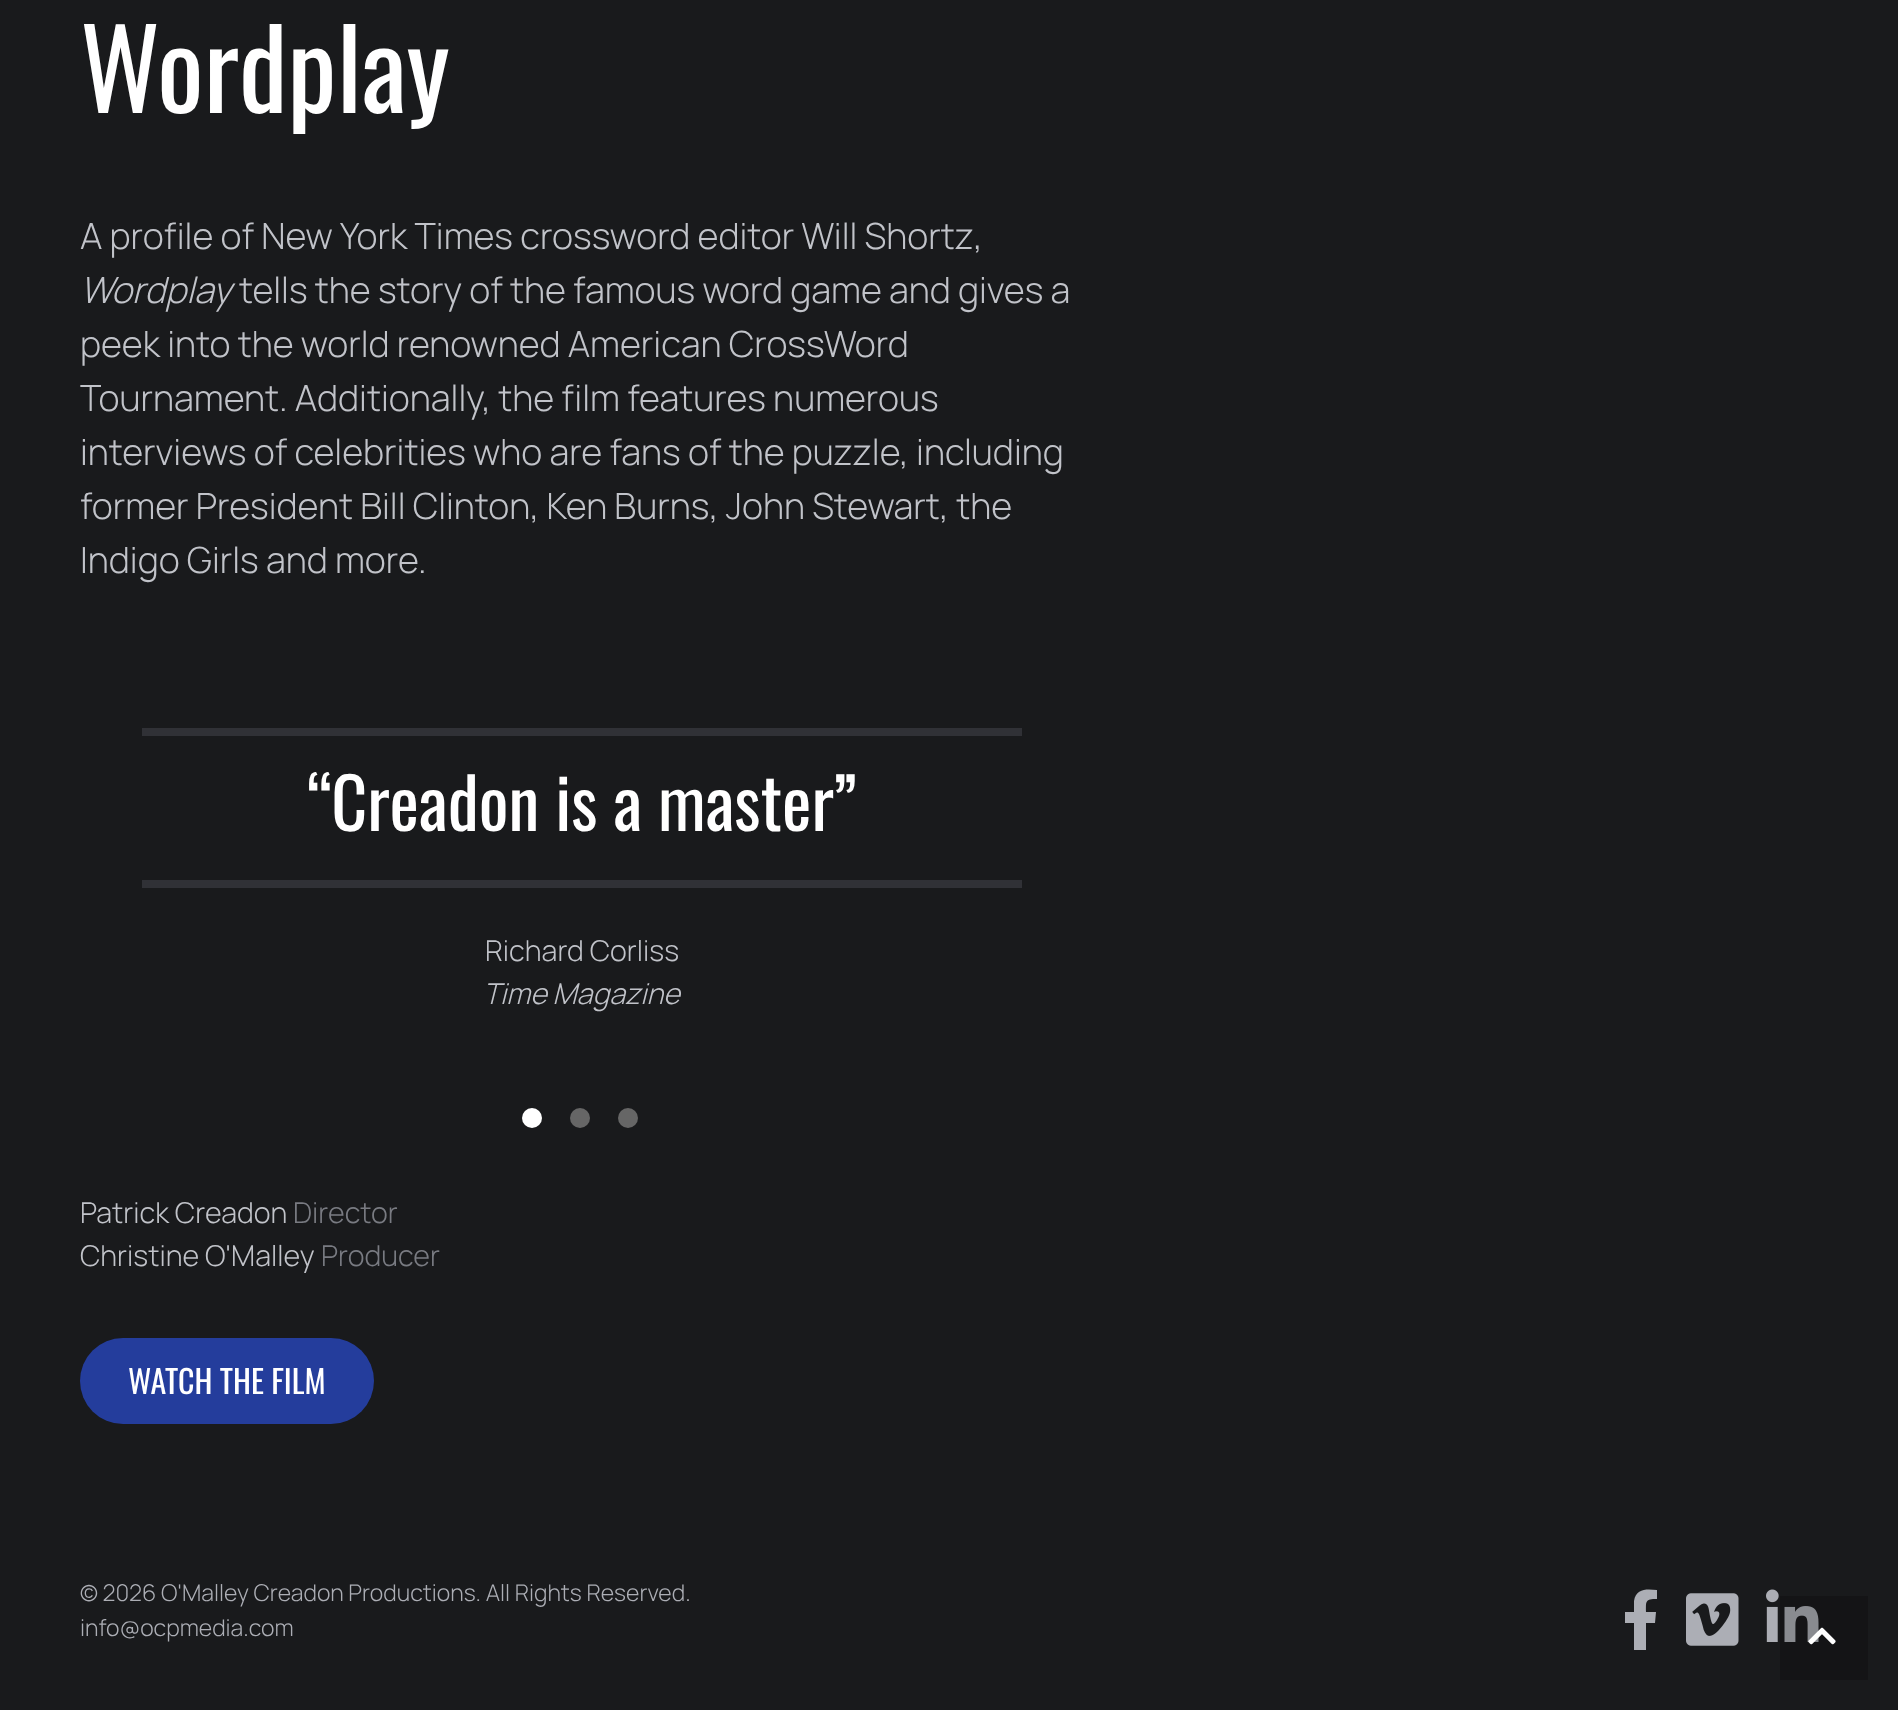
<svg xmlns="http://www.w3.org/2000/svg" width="1898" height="1710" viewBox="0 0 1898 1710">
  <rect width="100%" height="100%" fill="rgb(25,26,28)"/>
  <text x="80" y="113" font-family="Oswald" font-size="110" fill="rgb(255,255,255)">Wordplay</text>
  <text x="80" y="249" font-family="Manrope" font-size="36" font-weight="300" fill="rgb(193,195,201)">A profile of New York Times crossword editor Will Shortz,</text>
  <text x="80" y="303" font-family="Manrope" font-size="36" font-weight="300" font-style="italic" fill="rgb(193,195,201)">Wordplay</text>
  <g font-family="Manrope" font-size="36" font-weight="300" fill="rgb(193,195,201)">
    <text x="239" y="303">tells the story of the famous word game and gives a</text>
    <text>
      <tspan x="80" y="357">peek into the world renowned American CrossWord</tspan>
      <tspan x="80" y="411">Tournament. Additionally, the film features numerous</tspan>
      <tspan x="80" y="465">interviews of celebrities who are fans of the puzzle, including</tspan>
      <tspan x="80" y="519">former President Bill Clinton, Ken Burns, John Stewart, the</tspan>
      <tspan x="80" y="573">Indigo Girls and more.</tspan>
    </text>
  </g>
  <rect x="142" y="728" width="880" height="8" fill="rgb(48,49,54)"/>
  <rect x="142" y="880" width="880" height="8" fill="rgb(48,49,54)"/>
  <text x="307" y="831" font-family="Oswald" font-size="70" fill="rgb(255,255,255)">“Creadon is a master”</text>
  <text x="485" y="961" font-family="Manrope" font-size="28.75" font-weight="300" fill="rgb(193,195,201)">Richard Corliss</text>
  <text x="483" y="1004" font-family="Manrope" font-size="28.75" font-weight="300" font-style="italic" fill="rgb(193,195,201)">Time Magazine</text>
  <circle cx="532" cy="1118" r="10" fill="rgb(255,255,255)"/>
  <circle cx="580" cy="1118" r="10" fill="rgb(102,102,102)"/>
  <circle cx="628" cy="1118" r="10" fill="rgb(102,102,102)"/>
  <text x="80" y="1223" font-family="Manrope" font-size="28.75" font-weight="300" fill="rgb(193,195,201)">Patrick Creadon</text>
  <text x="293" y="1223" font-family="Manrope" font-size="28.75" font-weight="300" fill="rgb(121,123,130)">Director</text>
  <text x="80" y="1266" font-family="Manrope" font-size="28.75" font-weight="300" fill="rgb(193,195,201)">Christine O'Malley</text>
  <text x="321" y="1266" font-family="Manrope" font-size="28.75" font-weight="300" fill="rgb(121,123,130)">Producer</text>
  <rect x="80" y="1338" width="294" height="86" rx="43" fill="rgb(36,61,156)"/>
  <text x="128" y="1394" font-family="Oswald" font-size="32" fill="rgb(255,255,255)">WATCH THE FILM</text>
  <g font-family="Manrope" font-size="23.05" font-weight="300" fill="rgb(172,174,181)">
    <text>
      <tspan x="80" y="1601">© 2026 O'Malley Creadon Productions. All Rights Reserved.</tspan>
      <tspan x="80" y="1636">info@ocpmedia.com</tspan>
    </text>
  </g>
  <path d="M1655 1623H1646V1650H1634V1623H1625V1612H1634V1601C1636 1588 1647 1589 1657 1590V1599C1645 1599 1646 1601 1646 1612H1656Z" fill="rgb(172,174,181)"/>
  <image x="1686" y="1593" width="53" height="53" href="pic1.png"/>
  <image x="1766" y="1589" width="53" height="53" href="pic2.png"/>
  <rect x="1780" y="1596" width="88" height="84" fill="rgba(0,0,0,0.2)"/>
  <image x="1808" y="1627" width="28" height="18" href="pic3.png"/>
</svg>
